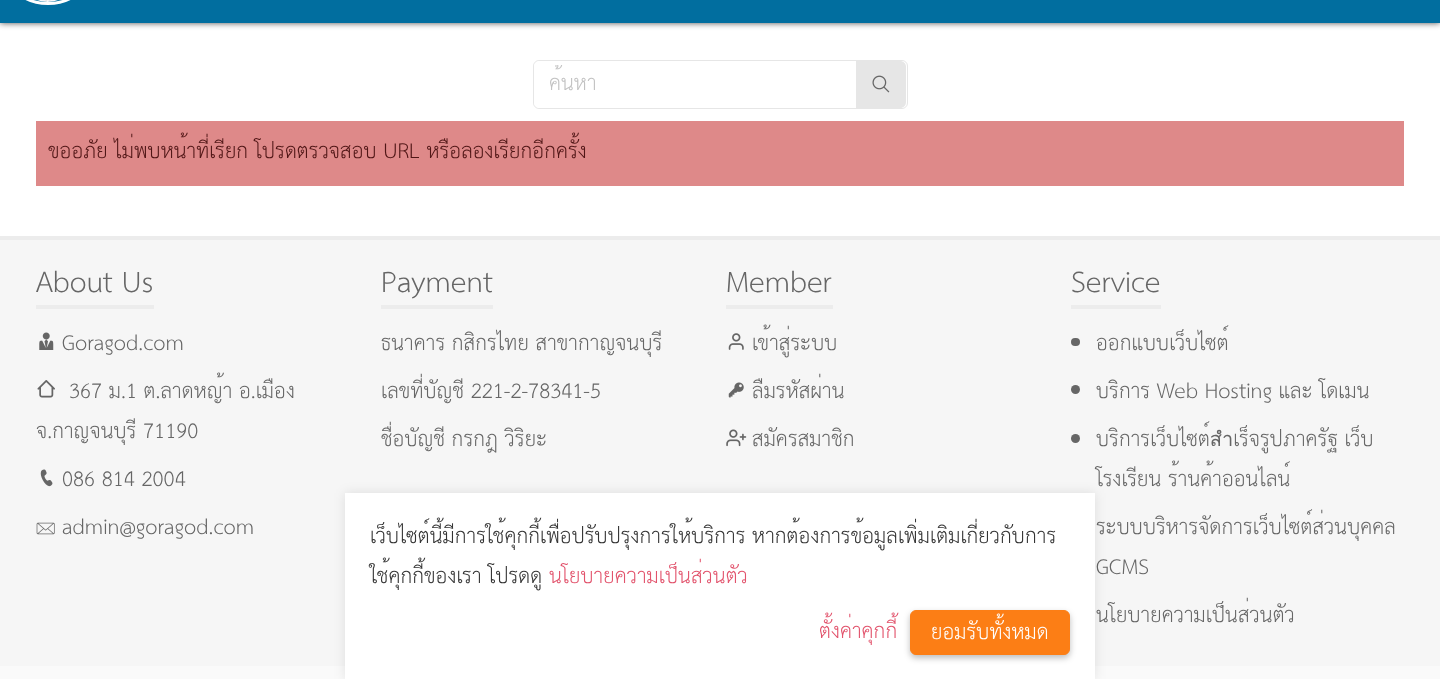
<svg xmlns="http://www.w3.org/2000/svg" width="1440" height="679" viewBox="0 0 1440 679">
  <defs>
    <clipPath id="clip1"><rect x="549" y="65" width="292" height="39"/></clipPath>
  </defs>
  <rect width="100%" height="100%" fill="rgb(255,255,255)"/>
  <rect x="0" y="-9" width="1440" height="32" fill="rgba(0,0,0,0.7)" filter="blur(3px)"/>
  <rect x="0" y="0" width="1440" height="23" fill="rgb(1,110,159)"/>
  <rect x="14.5" y="-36.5" width="67" height="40" rx="33.5" fill="none" stroke="rgb(255,255,255)" stroke-width="3"/>
  <image x="37" y="0" width="21" height="2" href="pic1.png"/>
  <rect x="533.5" y="60.5" width="374" height="48" rx="5.5" fill="none" stroke="rgb(230,230,230)"/>
  <path d="M540 61H856V108H540C536.5 108 534 105.5 534 102V67C534 63.5 536.5 61 540 61Z" fill="rgb(255,255,255)"/>
  <g clip-path="url(#clip1)">
    <text x="549" y="90" font-family="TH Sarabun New" font-size="20" fill="rgb(194,194,194)">ค้นหา</text>
  </g>
  <path d="M856 61H900C903.5 61 906 63.5 906 67V102C906 105.5 903.5 108 900 108H856Z" fill="rgb(230,230,230)"/>
  <image x="872" y="75" width="18" height="18" href="pic2.png"/>
  <rect x="36" y="121" width="1368" height="65" fill="rgb(222,137,137)"/>
  <text x="48" y="158" font-family="TH Sarabun New" font-size="20" fill="rgb(80,22,22)">ขออภัย ไม่พบหน้าที่เรียก โปรดตรวจสอบ URL หรือลองเรียกอีกครั้ง</text>
  <rect x="0" y="240" width="1440" height="426" fill="rgb(246,246,246)"/>
  <rect x="0" y="236" width="1440" height="4" fill="rgb(236,236,236)"/>
  <rect x="36" y="305" width="118" height="4" fill="rgb(236,236,236)"/>
  <text x="36" y="292" font-family="TH Sarabun New" font-size="27.5" fill="rgb(102,102,102)">About Us</text>
  <image x="39" y="332" width="15" height="18" href="pic3.png"/>
  <text x="62" y="350" font-family="TH Sarabun New" font-size="20" fill="rgb(102,102,102)">Goragod.com</text>
  <image x="37" y="380" width="18" height="18" href="pic4.png"/>
  <g font-family="TH Sarabun New" font-size="20" fill="rgb(102,102,102)">
    <text x="69" y="398">367 ม.1 ต.ลาดหญ้า อ.เมือง</text>
    <text x="36" y="438">จ.กาญจนบุรี 71190</text>
  </g>
  <image x="40" y="469" width="13" height="18" href="pic5.png"/>
  <text x="62" y="486" font-family="TH Sarabun New" font-size="20" fill="rgb(102,102,102)">086 814 2004</text>
  <image x="36" y="522" width="19" height="13" href="pic6.png"/>
  <text x="62" y="534" font-family="TH Sarabun New" font-size="20" fill="rgb(102,102,102)">admin@goragod.com</text>
  <rect x="381" y="305" width="112" height="4" fill="rgb(236,236,236)"/>
  <text x="381" y="292" font-family="TH Sarabun New" font-size="27.5" fill="rgb(102,102,102)">Payment</text>
  <g font-family="TH Sarabun New" font-size="20" fill="rgb(102,102,102)">
    <text x="381" y="350">ธนาคาร กสิกรไทย สาขากาญจนบุรี</text>
    <text x="381" y="398">เลขที่บัญชี 221-2-78341-5</text>
    <text x="381" y="446">ชื่อบัญชี กรกฎ วิริยะ</text>
  </g>
  <rect x="726" y="305" width="107" height="4" fill="rgb(236,236,236)"/>
  <text x="726" y="292" font-family="TH Sarabun New" font-size="27.5" fill="rgb(102,102,102)">Member</text>
  <image x="728" y="333" width="16" height="17" href="pic7.png"/>
  <text x="752" y="350" font-family="TH Sarabun New" font-size="20" fill="rgb(102,102,102)">เข้าสู่ระบบ</text>
  <image x="728" y="382" width="16" height="16" href="pic8.png"/>
  <text x="752" y="398" font-family="TH Sarabun New" font-size="20" fill="rgb(102,102,102)">ลืมรหัสผ่าน</text>
  <image x="726" y="429" width="21" height="18" href="pic9.png"/>
  <text x="752" y="446" font-family="TH Sarabun New" font-size="20" fill="rgb(102,102,102)">สมัครสมาชิก</text>
  <rect x="1071" y="305" width="90" height="4" fill="rgb(236,236,236)"/>
  <text x="1071" y="292" font-family="TH Sarabun New" font-size="27.5" fill="rgb(102,102,102)">Service</text>
  <rect x="1071" y="338" width="9" height="8" rx="4" fill="rgb(102,102,102)"/>
  <text x="1096" y="350" font-family="TH Sarabun New" font-size="20" fill="rgb(102,102,102)">ออกแบบเว็บไซต์</text>
  <circle cx="1075.5" cy="389.5" r="4.5" fill="rgb(102,102,102)"/>
  <text x="1096" y="398" font-family="TH Sarabun New" font-size="20" fill="rgb(102,102,102)">บริการ Web Hosting และ โดเมน</text>
  <circle cx="1075.5" cy="438.5" r="4.5" fill="rgb(102,102,102)"/>
  <g font-family="TH Sarabun New" font-size="20" fill="rgb(102,102,102)">
    <text x="1096" y="446">บริการเว็บไซต์สำเร็จรูปภาครัฐ เว็บ</text>
    <text x="1096" y="486">โรงเรียน ร้านค้าออนไลน์</text>
    <text x="1096" y="534">ระบบบริหารจัดการเว็บไซต์ส่วนบุคคล</text>
    <text x="1096" y="574">GCMS</text>
    <text x="1096" y="622">นโยบายความเป็นส่วนตัว</text>
  </g>
  <rect x="0" y="666" width="1440" height="13" fill="rgb(250,250,250)"/>
  <rect x="345" y="493" width="750" height="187" fill="rgba(0,0,0,0.1)" filter="blur(6px)"/>
  <rect x="345" y="493" width="750" height="186" fill="rgb(255,255,255)"/>
  <g font-family="TH Sarabun New" font-size="20" fill="rgb(51,51,51)">
    <text x="370" y="543">เว็บไซต์นี้มีการใช้คุกกี้เพื่อปรับปรุงการให้บริการ หากต้องการข้อมูลเพิ่มเติมเกี่ยวกับการ</text>
    <text x="370" y="583">ใช้คุกกี้ของเรา โปรดดู</text>
  </g>
  <g font-family="TH Sarabun New" font-size="20" fill="rgb(226,83,108)">
    <text x="549" y="583">นโยบายความเป็นส่วนตัว</text>
    <text x="819" y="638">ตั้งค่าคุกกี้</text>
  </g>
  <rect x="910" y="613" width="160" height="45" rx="6" fill="rgba(0,0,0,0.26)" filter="blur(3px)"/>
  <rect x="910.5" y="610.5" width="159" height="44" rx="5.5" fill="rgb(252,126,21)" stroke="rgb(252,126,21)"/>
  <text x="931" y="639" font-family="TH Sarabun New" font-size="20" fill="rgb(255,255,255)">ยอมรับทั้งหมด</text>
</svg>
